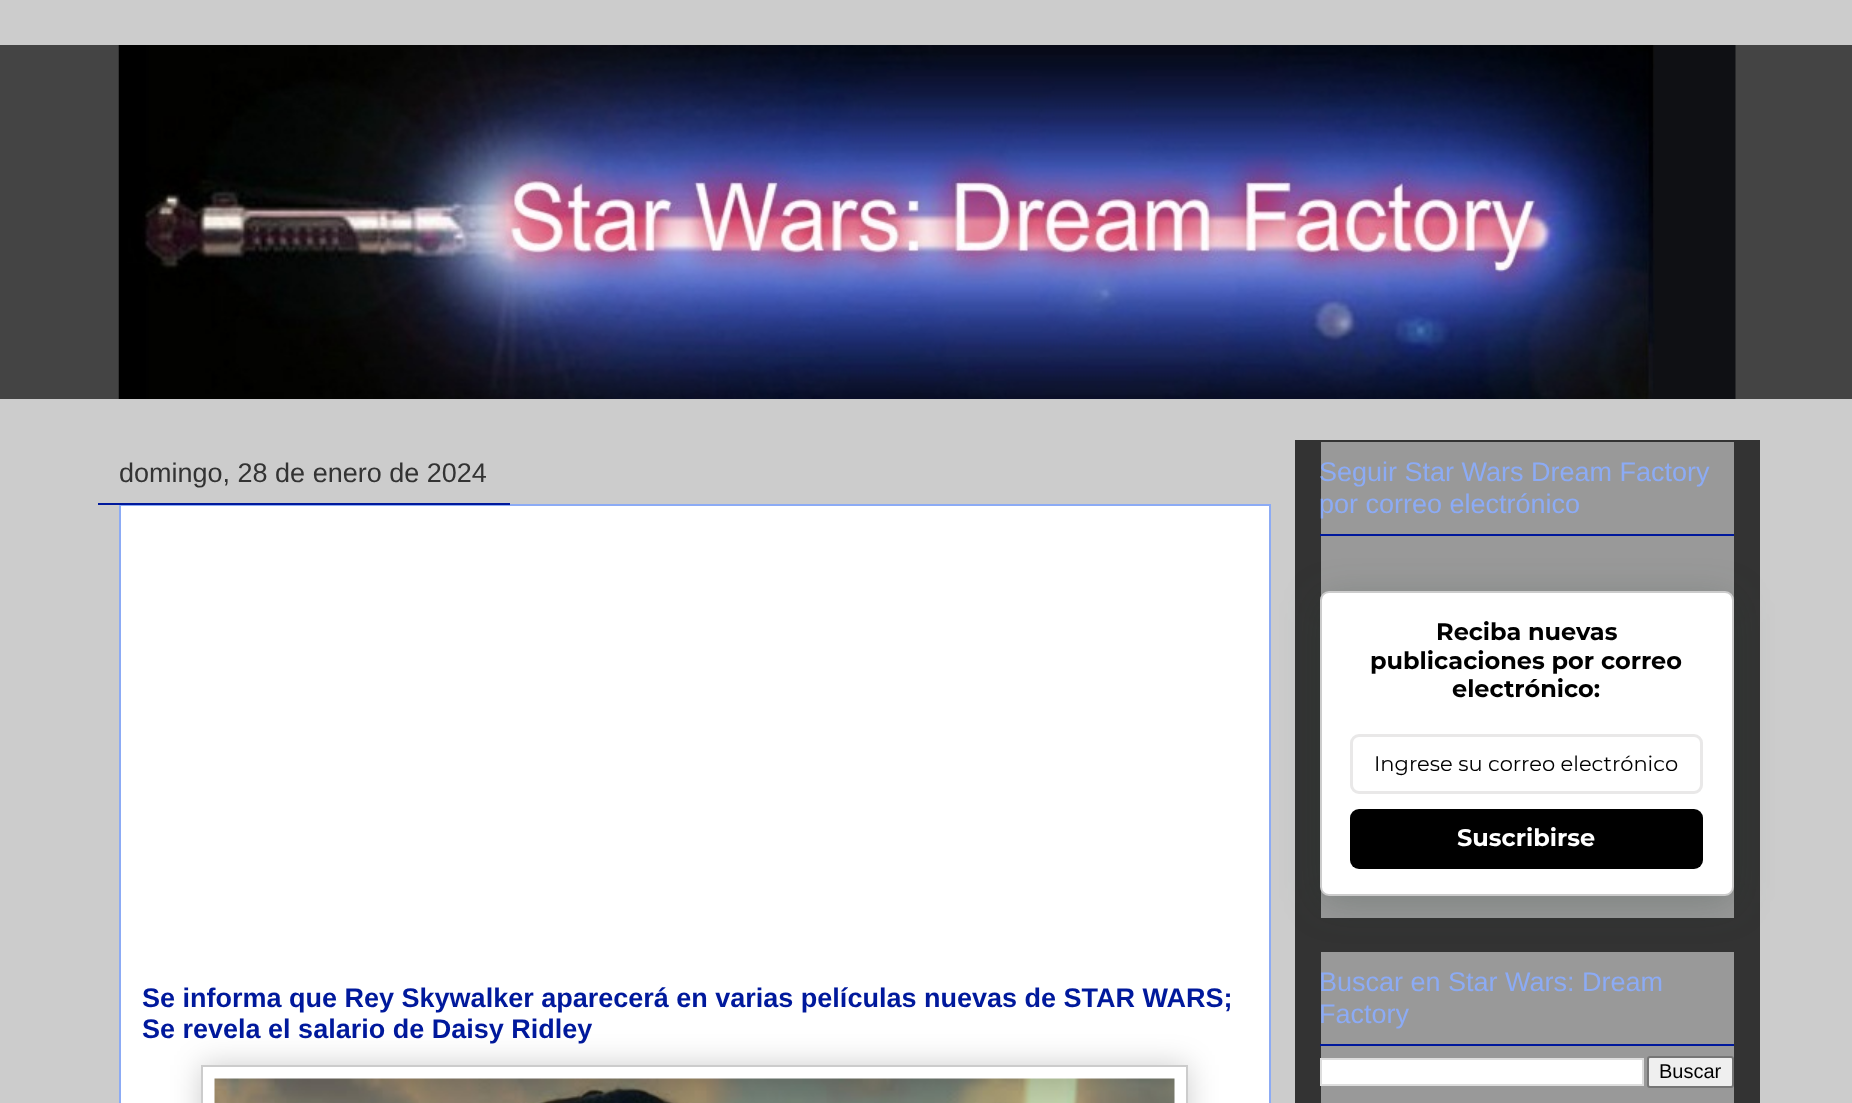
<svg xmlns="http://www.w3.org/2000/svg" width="1852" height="1103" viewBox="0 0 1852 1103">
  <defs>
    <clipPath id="clip1"><path d="M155 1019H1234V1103H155ZM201 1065H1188V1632H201Z" clip-rule="evenodd"/></clipPath>
  </defs>
  <rect width="100%" height="100%" fill="rgb(204,204,204)"/>
  <rect x="0" y="45" width="1852" height="354" fill="rgb(68,68,68)"/>
  <image x="118" y="45" width="1618" height="354" href="pic1.png"/>
  <rect x="120" y="505" width="1150" height="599" fill="rgb(255,255,255)" stroke="rgb(140,171,245)" stroke-width="2"/>
  <rect x="98" y="503" width="412" height="2" fill="rgb(0,25,156)"/>
  <text x="119" y="482" font-family="Liberation Sans" font-size="27" fill="rgb(51,51,51)">domingo, 28 de enero de 2024</text>
  <g font-family="Liberation Sans" font-size="27" font-weight="bold" fill="rgb(0,25,156)">
    <text>
      <tspan x="142" y="1007">Se informa que Rey Skywalker aparecerá en varias películas nuevas de STAR WARS;</tspan>
      <tspan x="142" y="1038">Se revela el salario de Daisy Ridley</tspan>
    </text>
  </g>
  <g clip-path="url(#clip1)">
    <rect x="201" y="1065" width="987" height="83" fill="rgba(0,0,0,0.2)" filter="blur(15px)"/>
  </g>
  <rect x="202" y="1066" width="985" height="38" fill="none" stroke="rgb(204,204,204)" stroke-width="2"/>
  <image x="214" y="1078" width="961" height="25" href="pic2.png"/>
  <rect x="1295" y="440" width="465" height="663" fill="rgb(51,51,51)"/>
  <rect x="1321" y="442" width="413" height="476" fill="rgb(153,153,153)"/>
  <rect x="1320" y="534" width="414" height="2" fill="rgb(0,25,156)"/>
  <g font-family="Liberation Sans" font-size="27" fill="rgb(140,171,245)">
    <text>
      <tspan x="1319" y="481">Seguir Star Wars Dream Factory</tspan>
      <tspan x="1319" y="513">por correo electrónico</tspan>
    </text>
  </g>
  <rect x="1320" y="599" width="414" height="304" rx="9" fill="rgba(34,60,47,0.25)" filter="blur(19px)"/>
  <rect x="1321" y="592" width="412" height="303" rx="8" fill="rgb(255,255,255)" stroke="rgb(204,204,204)" stroke-width="2"/>
  <g font-family="Montserrat" font-size="24" font-weight="100" fill="rgb(0,0,0)">
    <text x="1436" y="640">Reciba nuevas</text>
    <text x="1370" y="669">publicaciones por correo</text>
    <text x="1452" y="697">electrónico:</text>
  </g>
  <rect x="1351.5" y="735.5" width="350" height="57" rx="7.5" fill="none" stroke="rgb(233,232,232)" stroke-width="3"/>
  <text x="1374" y="771" font-family="'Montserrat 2'" font-size="21" font-weight="100" fill="rgb(0,0,0)">Ingrese su correo electrónico</text>
  <rect x="1350" y="809" width="353" height="60" rx="9" fill="rgb(0,0,0)"/>
  <text x="1457" y="846" font-family="Montserrat" font-size="24" font-weight="100" fill="rgb(255,255,255)">Suscribirse</text>
  <rect x="1321" y="952" width="413" height="151" fill="rgb(153,153,153)"/>
  <rect x="1320" y="1044" width="414" height="2" fill="rgb(0,25,156)"/>
  <g font-family="Liberation Sans" font-size="27" fill="rgb(140,171,245)">
    <text>
      <tspan x="1319" y="991">Buscar en Star Wars: Dream</tspan>
      <tspan x="1319" y="1023">Factory</tspan>
    </text>
  </g>
  <rect x="1321" y="1059" width="322" height="26" fill="rgb(255,255,255)" stroke="rgb(221,221,221)" stroke-width="2"/>
  <rect x="1648" y="1057" width="85" height="30" rx="2" fill="rgb(239,239,239)" stroke="rgb(118,118,118)" stroke-width="2"/>
  <text x="1659" y="1078" font-family="Liberation Sans" font-size="20" fill="rgb(0,0,0)">Buscar</text>
</svg>
